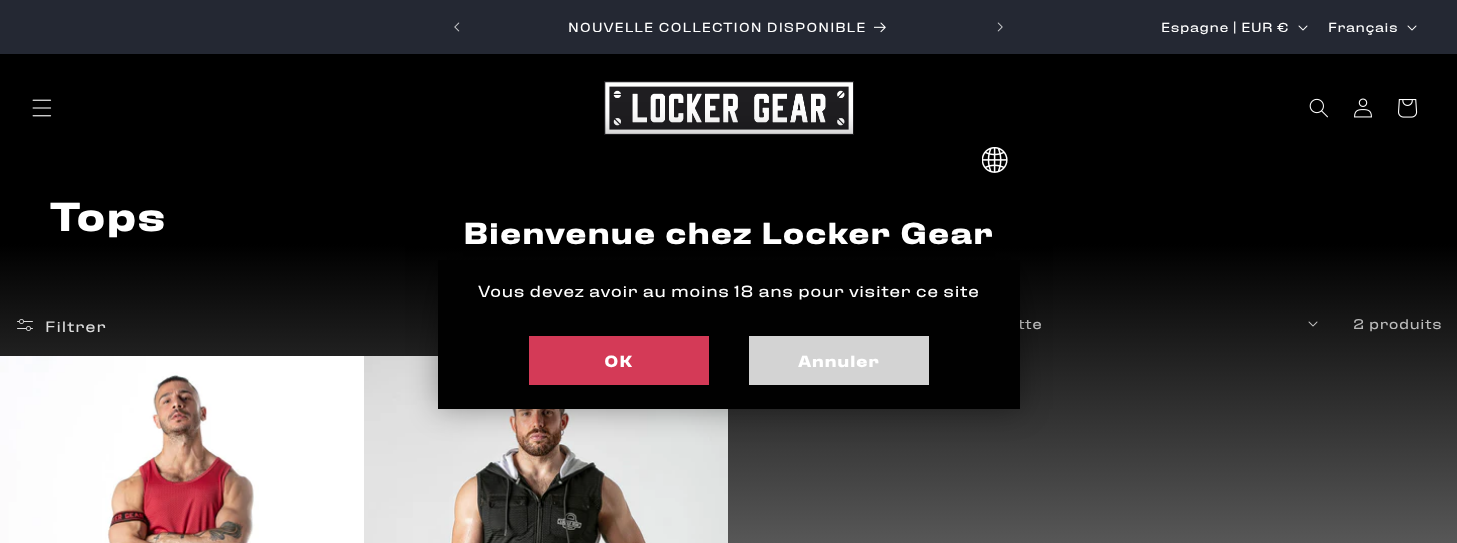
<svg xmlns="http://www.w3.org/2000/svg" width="1457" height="543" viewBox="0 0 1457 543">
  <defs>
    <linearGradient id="g1" gradientUnits="userSpaceOnUse" x1="729" y1="0" x2="729" y2="543"><stop offset="0.45" stop-color="rgb(0,0,0)"/><stop offset="1" stop-color="rgb(87,87,87)"/></linearGradient>
  </defs>
  <rect width="100%" height="100%" fill="rgb(255,255,255)"/>
  <rect x="0" y="54" width="1457" height="489" fill="url(#g1)"/>
  <rect x="0" y="0" width="1457" height="54" fill="rgb(36,40,51)"/>
  <image x="454" y="22" width="6" height="10" href="pic1.png"/>
  <text x="568" y="32" font-family="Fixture" font-size="13" letter-spacing="1" fill="rgb(255,255,255)">NOUVELLE COLLECTION DISPONIBLE</text>
  <image x="874" y="22" width="12" height="11" href="pic2.png"/>
  <image x="997" y="22" width="6" height="10" href="pic3.png"/>
  <text x="1161" y="32" font-family="Fixture" font-size="13" letter-spacing="0.6" fill="rgb(255,255,255)">Espagne | EUR €</text>
  <image x="1298" y="25" width="10" height="6" href="pic4.png"/>
  <text x="1328" y="32" font-family="Fixture" font-size="13" letter-spacing="0.6" fill="rgb(255,255,255)">Français</text>
  <image x="1407" y="25" width="10" height="6" href="pic4.png"/>
  <image x="32" y="99" width="20" height="18" href="pic5.png"/>
  <image x="604" y="81" width="250" height="54" href="pic6.png"/>
  <image x="1309" y="98" width="19" height="20" href="pic7.png"/>
  <image x="1354" y="98" width="18" height="20" href="pic8.png"/>
  <image x="1398" y="99" width="20" height="19" href="pic9.png"/>
  <text x="50" y="231" font-family="Fixture" font-size="40" font-weight="bold" letter-spacing="0.6" fill="rgb(255,255,255)">Tops</text>
  <image x="17" y="319" width="16" height="12" href="pic10.png"/>
  <text x="45" y="332" font-family="Fixture" font-size="15" letter-spacing="1" fill="rgb(220,220,220)">Filtrer</text>
  <text x="1018" y="329" font-family="Fixture" font-size="14" letter-spacing="0.5" fill="rgb(197,197,197)">tte</text>
  <image x="1308" y="321" width="10" height="6" href="pic11.png"/>
  <text x="1353" y="329" font-family="Fixture" font-size="14" letter-spacing="0.6" fill="rgb(186,186,186)">2 produits</text>
  <image x="0" y="356" width="364" height="187" href="pic12.png"/>
  <image x="364" y="356" width="364" height="187" href="pic13.png"/>
  <rect x="438" y="135" width="582" height="274" fill="rgba(0,0,0,0.35)" filter="blur(15px)"/>
  <rect x="438" y="260" width="582" height="149" fill="rgb(1,1,1)"/>
  <image x="982" y="147" width="26" height="26" href="pic14.png"/>
  <text x="463" y="244" font-family="Fixture" font-size="30" font-weight="bold" letter-spacing="0.6" fill="rgb(255,255,255)">Bienvenue chez Locker Gear</text>
  <text x="478" y="297" font-family="Fixture" font-size="16" letter-spacing="0.6" fill="rgb(255,255,255)">Vous devez avoir au moins 18 ans pour visiter ce site</text>
  <rect x="529" y="336" width="180" height="49" fill="rgb(212,58,87)"/>
  <text x="604" y="367" font-family="Fixture" font-size="16" font-weight="bold" letter-spacing="0.6" fill="rgb(255,255,255)">OK</text>
  <rect x="749" y="336" width="180" height="49" fill="rgb(211,211,211)"/>
  <text x="798" y="367" font-family="Fixture" font-size="16" font-weight="bold" letter-spacing="0.6" fill="rgb(255,255,255)">Annuler</text>
</svg>
